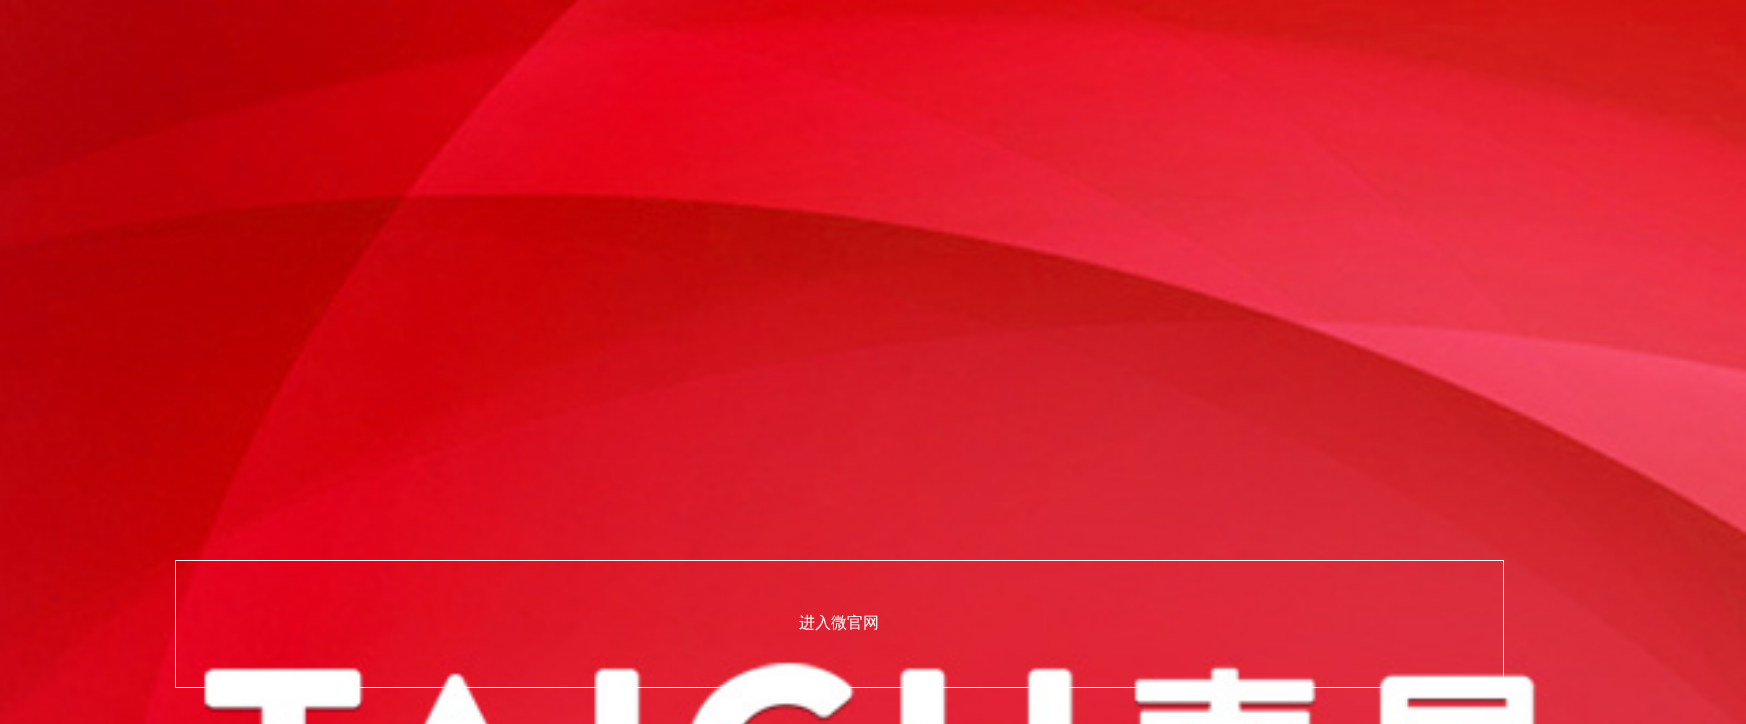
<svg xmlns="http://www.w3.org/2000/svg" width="1746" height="724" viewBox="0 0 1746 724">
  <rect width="100%" height="100%" fill="rgb(255,255,255)"/>
  <image x="0" y="0" width="1746" height="724" href="pic1.png"/>
  <rect x="175.5" y="560.5" width="1328" height="127" fill="none" stroke="rgb(255,255,255)"/>
  <text x="799" y="628" font-family="WenQuanYi Zen Hei" font-size="16" font-weight="500" fill="rgb(255,255,255)">进入微官网</text>
</svg>
